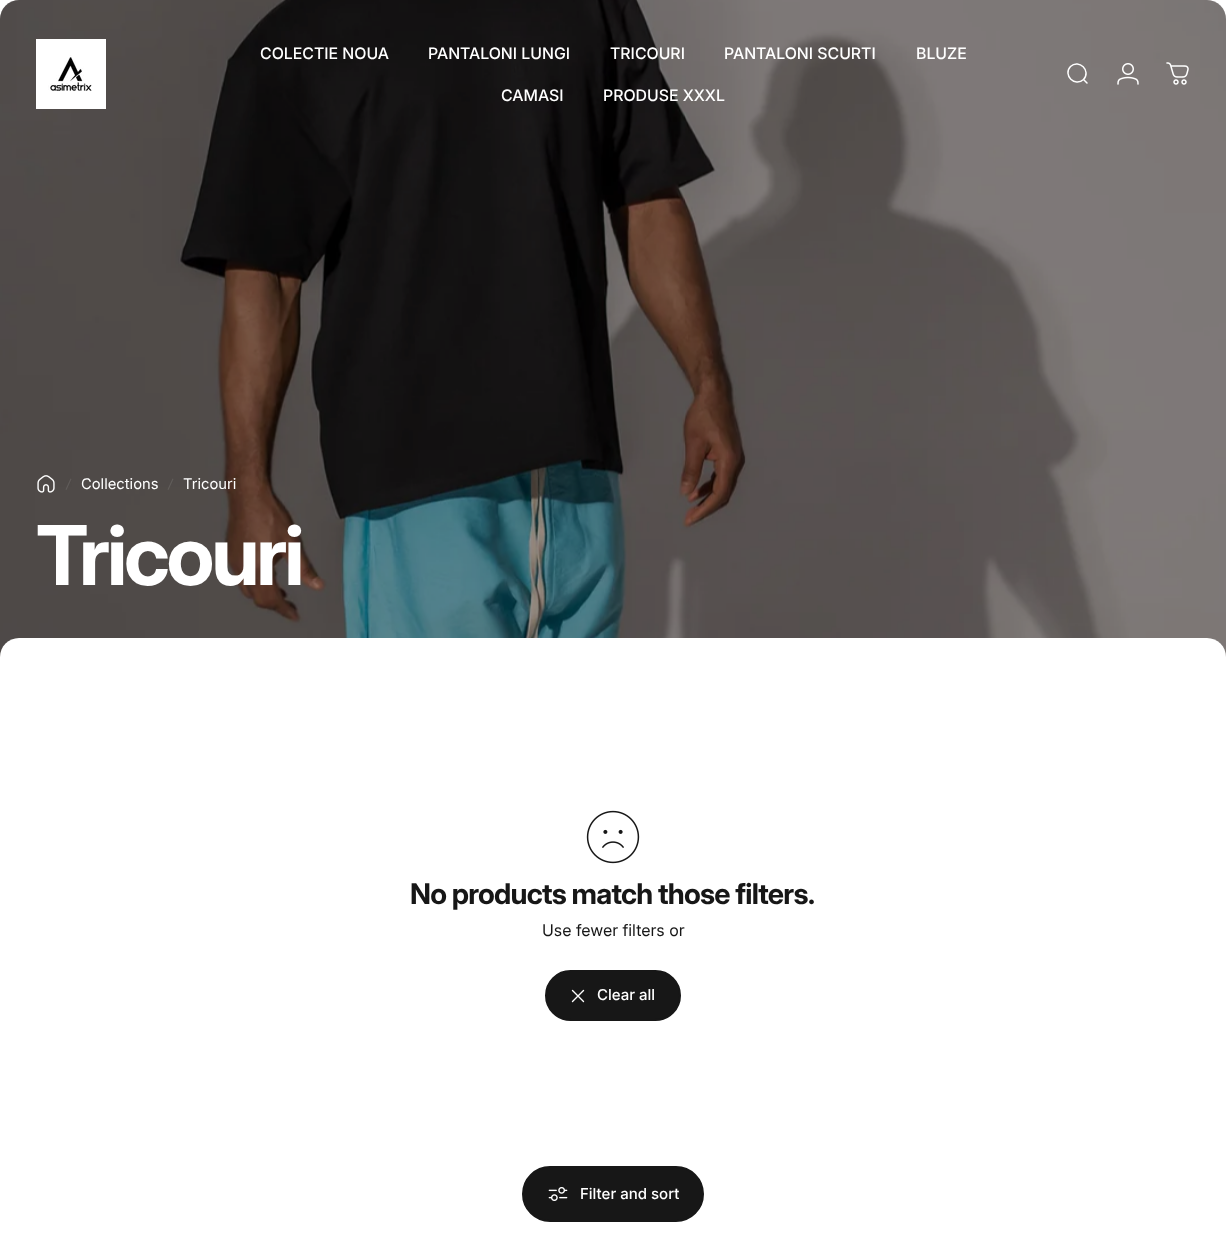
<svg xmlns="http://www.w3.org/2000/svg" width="1226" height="1254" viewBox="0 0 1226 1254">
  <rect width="100%" height="100%" fill="rgb(255,255,255)"/>
  <path d="M19 0H1207C1217.5 0 1226 8.5 1226 19V657H0V19C0 8.5 8.5 0 19 0Z" fill="rgb(250,250,250)"/>
  <image x="0" y="0" width="1226" height="657" href="pic4.png"/>
  <path d="M19 0H1207C1217.5 0 1226 8.5 1226 19V657H0V19C0 8.5 8.5 0 19 0Z" fill="rgba(0,0,0,0.4)"/>
  <image x="36" y="39" width="70" height="70" href="pic1.png"/>
  <g font-family="'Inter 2'" font-size="15.9" font-weight="500" fill="rgb(255,255,255)">
    <text x="260" y="59">COLECTIE NOUA</text>
    <text x="428" y="59">PANTALONI LUNGI</text>
    <text x="610" y="59">TRICOURI</text>
    <text x="724" y="59">PANTALONI SCURTI</text>
    <text x="916" y="59">BLUZE</text>
    <text x="501" y="101">CAMASI</text>
    <text x="603" y="101">PRODUSE XXXL</text>
  </g>
  <path d="M1087 83L1083.5 79.5M1083.5 79.5C1091.5 71 1079 58.5 1070.5 66.5C1062.5 75 1075 87.5 1083.5 79.5Z" fill="none" stroke="rgb(255,255,255)" stroke-width="1.5" stroke-linecap="round"/>
  <image x="1117" y="63" width="22" height="22" href="pic2.png"/>
  <image x="1166" y="62" width="23" height="23" href="pic3.png"/>
  <image x="37" y="475" width="18" height="18" href="pic5.png"/>
  <path d="M70.5 478.5L71.5 479L66.5 490L65.5 489.5Z" fill="rgb(96,92,90)"/>
  <text x="81" y="489" font-family="'Inter 2'" font-size="14.75" fill="rgb(255,255,255)">Collections</text>
  <path d="M172.5 478.5L173.5 479L168.5 490L167.5 489.5Z" fill="rgb(97,93,90)"/>
  <text x="183" y="489" font-family="'Inter 2'" font-size="14.75" fill="rgb(255,255,255)">Tricouri</text>
  <text x="36" y="585" font-family="'Inter 2'" font-size="82.5" font-weight="bold" letter-spacing="-3.25" fill="rgb(255,255,255)">Tricouri</text>
  <path d="M19 638H1207C1217.5 638 1226 646.5 1226 657V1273H0V657C0 646.5 8.5 638 19 638Z" fill="rgb(255,255,255)"/>
  <image x="586" y="810" width="54" height="54" href="pic6.png"/>
  <text x="410" y="904" font-family="Inter" font-size="28.6" font-weight="bold" letter-spacing="-0.75" fill="rgb(23,23,23)">No products match those filters.</text>
  <text x="542" y="936" font-family="Inter" font-size="16" fill="rgb(23,23,23)">Use fewer filters or</text>
  <rect x="546" y="971" width="134" height="49" rx="24.5" fill="rgb(23,23,23)" stroke="rgb(23,23,23)" stroke-width="2"/>
  <path d="M572.5 1001.5L583.5 990.5M572.5 990.5L583.5 1001.5" fill="none" stroke="rgb(255,255,255)" stroke-width="1.4" stroke-linecap="round" stroke-linejoin="round"/>
  <text x="597" y="1000" font-family="Inter" font-size="15" font-weight="500" fill="rgb(255,255,255)">Clear all</text>
  <rect x="523" y="1167" width="180" height="54" rx="27" fill="rgb(23,23,23)" stroke="rgb(23,23,23)" stroke-width="2"/>
  <image x="548" y="1187" width="20" height="14" href="pic7.png"/>
  <text x="580" y="1199" font-family="Inter" font-size="15" font-weight="500" fill="rgb(255,255,255)">Filter and sort</text>
</svg>
